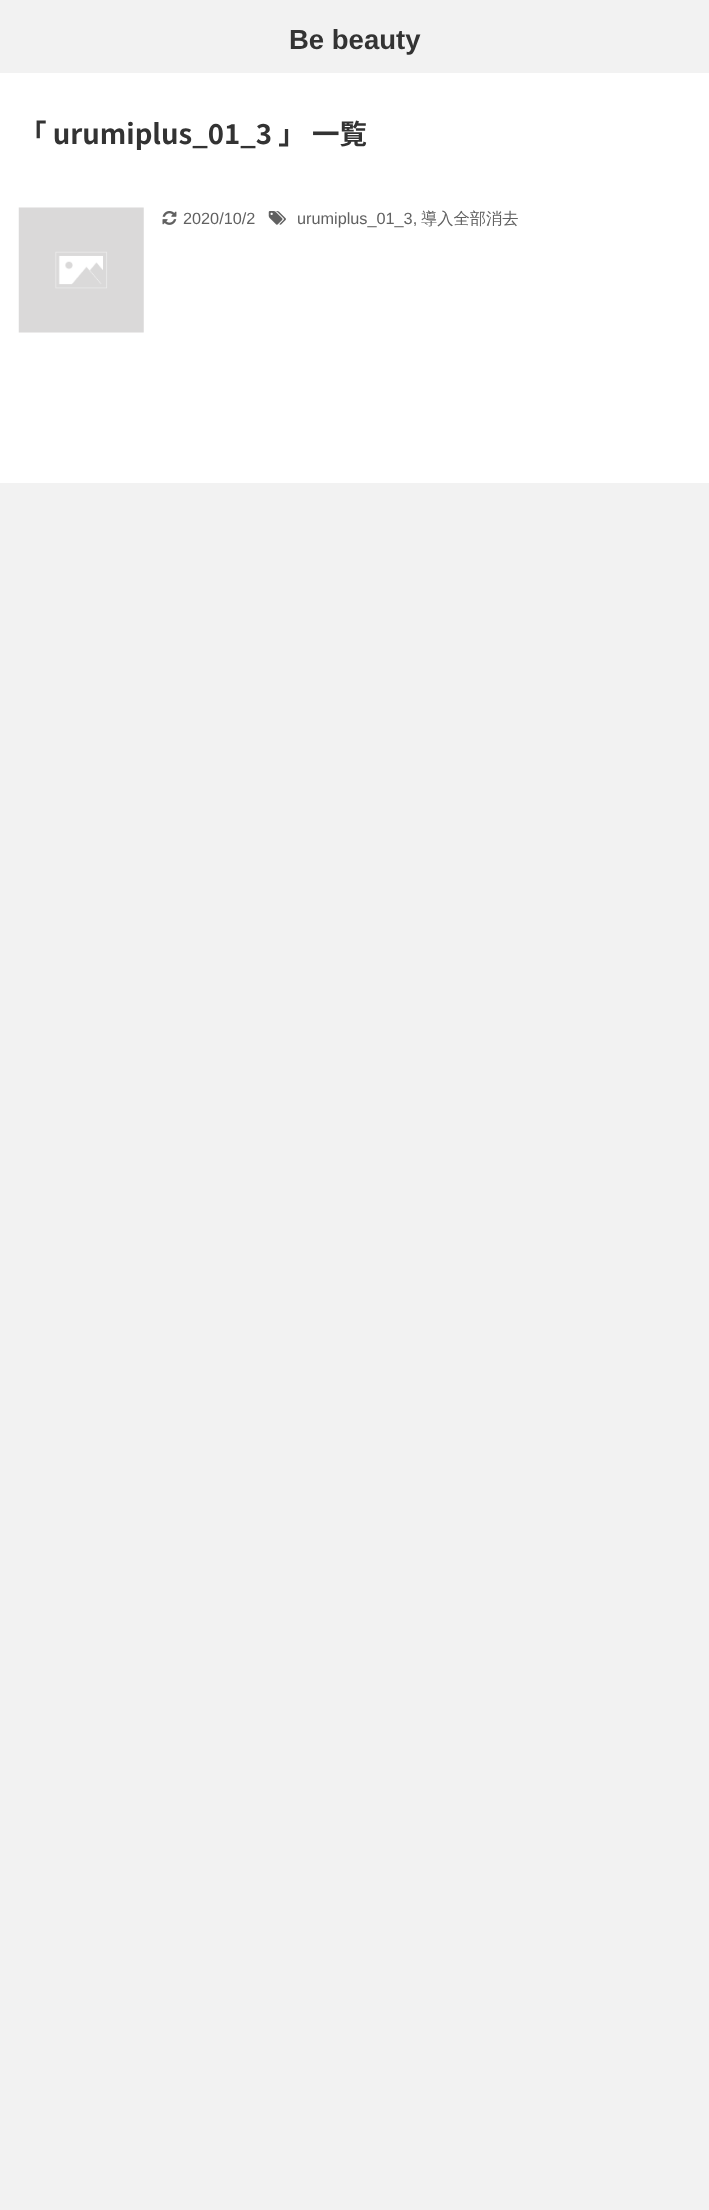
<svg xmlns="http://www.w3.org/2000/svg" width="709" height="2210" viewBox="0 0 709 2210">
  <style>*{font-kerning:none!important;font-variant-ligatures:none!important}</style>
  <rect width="100%" height="100%" fill="rgb(242,242,242)"/>
  <text x="289" y="49" font-family="Liberation Sans" font-size="27.5" font-weight="bold" fill="rgb(51,51,51)">Be beauty</text>
  <rect x="0" y="73" width="709" height="410" fill="rgb(255,255,255)"/>
  <text x="19" y="144" font-family="Noto Sans JP" font-size="27.5" font-weight="bold" fill="rgb(51,51,51)">「 urumiplus_01_3 」 一覧</text>
  <image x="18" y="207" width="126" height="126" href="pic1.png"/>
  <image x="162" y="211" width="15" height="14" href="pic2.png"/>
  <text x="183" y="224" font-family="Liberation Sans" font-size="16.25" fill="rgb(97,97,97)">2020/10/2</text>
  <image x="268" y="211" width="18" height="14" href="pic3.png"/>
  <text x="297" y="224" font-family="Liberation Sans" font-size="16.25" fill="rgb(97,97,97)">urumiplus_01_3,</text>
  <text x="421" y="224" font-family="WenQuanYi Zen Hei" font-size="16.25" font-weight="500" fill="rgb(97,97,97)">導入全部消去</text>
</svg>
